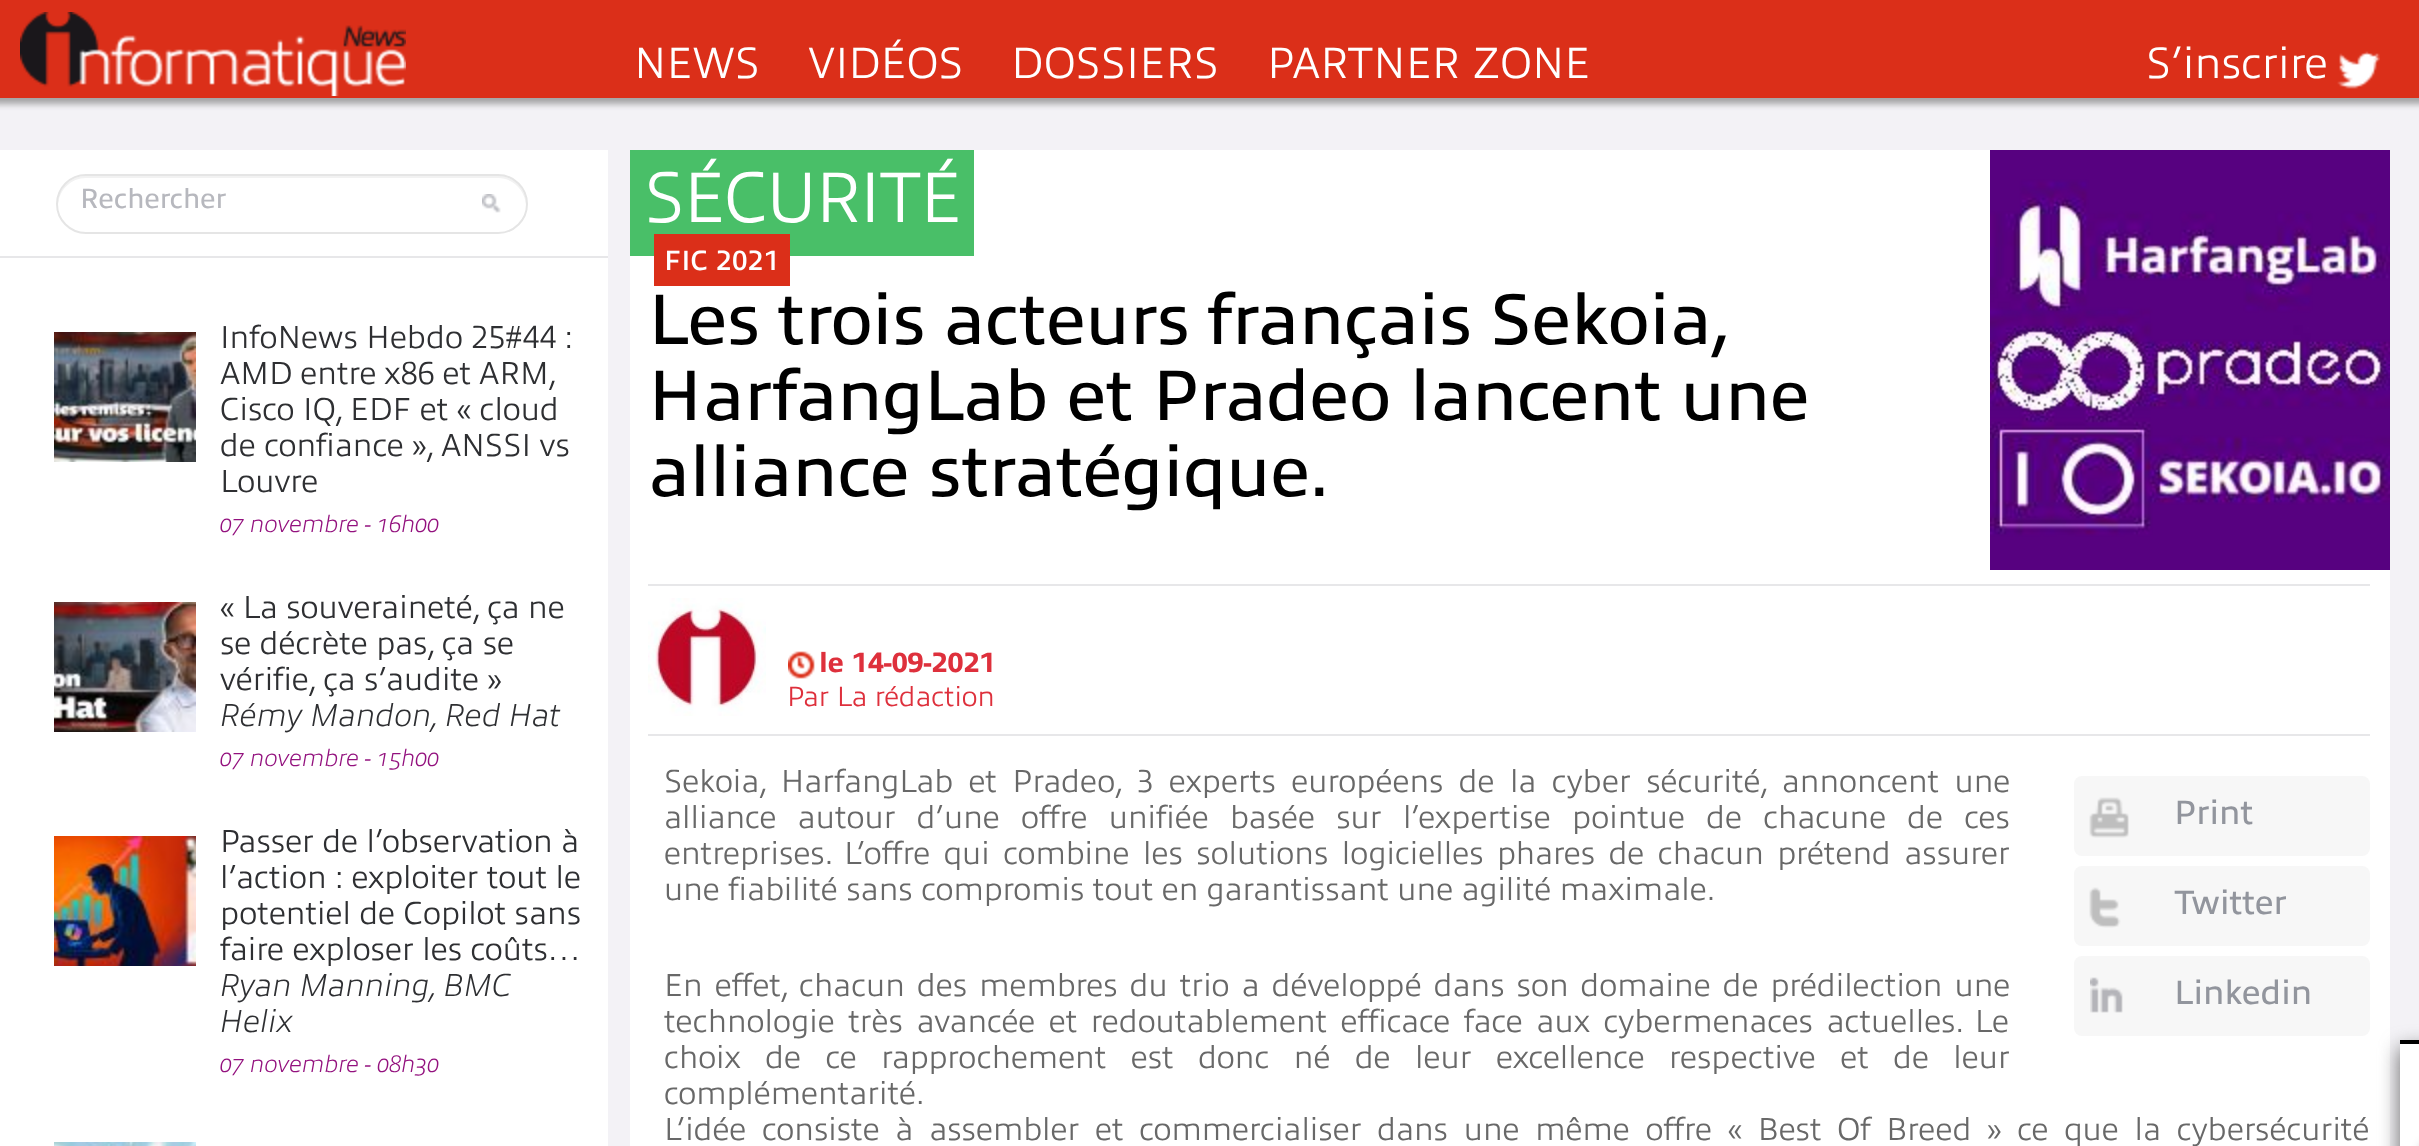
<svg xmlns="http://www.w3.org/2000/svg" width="2419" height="1146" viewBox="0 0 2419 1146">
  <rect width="100%" height="100%" fill="rgb(243,242,246)"/>
  <rect x="-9" y="-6" width="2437" height="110" fill="rgb(163,163,164)" filter="blur(3px)"/>
  <rect x="0" y="0" width="2419" height="98" fill="rgb(219,47,25)"/>
  <image x="20" y="12" width="386" height="84" href="pic1.png"/>
  <g font-family="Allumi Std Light" font-size="44" font-weight="300" fill="rgb(255,255,255)">
    <text x="634" y="78">NEWS</text>
    <text x="808" y="78">VIDÉOS</text>
    <text x="1011" y="78">DOSSIERS</text>
    <text x="1267" y="78">PARTNER ZONE</text>
    <text x="2146" y="78">S’inscrire</text>
  </g>
  <image x="2337" y="51" width="43" height="38" href="pic2.png"/>
  <rect x="0" y="150" width="608" height="996" fill="rgb(255,255,255)"/>
  <rect x="0" y="256" width="608" height="2" fill="rgb(231,231,233)"/>
  <path d="M86 178H498C513 178 525 190 526 205C527 189 514 176 498 176H86C70 176 57 189 58 205C59 190 71 178 86 178Z" fill="rgb(242,242,242)"/>
  <rect x="57" y="175" width="470" height="58" rx="29" fill="none" stroke="rgb(229,229,229)" stroke-width="2"/>
  <text x="80" y="208" font-family="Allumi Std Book" font-size="28" fill="rgb(183,184,190)">Rechercher</text>
  <image x="482" y="194" width="19" height="19" href="pic3.png"/>
  <image x="54" y="332" width="142" height="130" href="pic4.png"/>
  <g font-family="Allumi Std Light" font-size="32" font-weight="300" fill="rgb(46,47,50)">
    <text>
      <tspan x="220" y="348">InfoNews Hebdo 25#44 :</tspan>
      <tspan x="220" y="384" word-spacing="-0.5">AMD entre x86 et ARM,</tspan>
      <tspan x="220" y="420">Cisco IQ, EDF et « cloud</tspan>
      <tspan x="220" y="456">de confiance », ANSSI vs</tspan>
      <tspan x="220" y="492">Louvre</tspan>
    </text>
  </g>
  <text x="220" y="532" font-family="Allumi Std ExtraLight" font-size="24" font-weight="200" font-style="italic" fill="rgb(147,17,126)">07 novembre - 16h00</text>
  <image x="54" y="602" width="142" height="130" href="pic5.png"/>
  <g font-family="Allumi Std Light" font-size="32" font-weight="300" fill="rgb(46,47,50)">
    <text>
      <tspan x="220" y="618">« La souveraineté, ça ne</tspan>
      <tspan x="220" y="654">se décrète pas, ça se</tspan>
      <tspan x="220" y="690">vérifie, ça s’audite »</tspan>
    </text>
  </g>
  <text x="220" y="726" font-family="Allumi Std ExtraLight" font-size="32" font-weight="200" font-style="italic" fill="rgb(46,47,50)">Rémy Mandon, Red Hat</text>
  <text x="220" y="766" font-family="Allumi Std ExtraLight" font-size="24" font-weight="200" font-style="italic" fill="rgb(147,17,126)">07 novembre - 15h00</text>
  <image x="54" y="836" width="142" height="130" href="pic6.png"/>
  <g font-family="Allumi Std Light" font-size="32" font-weight="300" fill="rgb(46,47,50)">
    <text>
      <tspan x="220" y="852">Passer de l’observation à</tspan>
      <tspan x="220" y="888">l’action : exploiter tout le</tspan>
      <tspan x="220" y="924">potentiel de Copilot sans</tspan>
      <tspan x="220" y="960">faire exploser les coûts…</tspan>
    </text>
  </g>
  <g font-family="Allumi Std ExtraLight" font-size="32" font-weight="200" font-style="italic" fill="rgb(46,47,50)">
    <text>
      <tspan x="220" y="996">Ryan Manning, BMC</tspan>
      <tspan x="220" y="1032">Helix</tspan>
    </text>
  </g>
  <text x="220" y="1072" font-family="Allumi Std ExtraLight" font-size="24" font-weight="200" font-style="italic" fill="rgb(147,17,126)">07 novembre - 08h30</text>
  <image x="54" y="1142" width="142" height="4" href="pic7.png"/>
  <rect x="630" y="150" width="1760" height="996" fill="rgb(255,255,255)"/>
  <rect x="630" y="150" width="344" height="106" fill="rgb(73,191,104)"/>
  <text x="644" y="222" font-family="Allumi Std Light" font-size="72" font-weight="300" letter-spacing="-2" fill="rgb(255,255,255)">SÉCURITÉ</text>
  <image x="1990" y="150" width="400" height="420" href="pic8.png"/>
  <rect x="654" y="234" width="136" height="52" fill="rgb(219,47,25)"/>
  <text x="664" y="270" font-family="Allumi Std Light" font-size="28" font-weight="bold" fill="rgb(255,255,255)">FIC 2021</text>
  <g font-family="Allumi Std Book" font-size="72" fill="rgb(0,0,0)">
    <text>
      <tspan x="648" y="344" word-spacing="-1.5">Les trois acteurs français Sekoia,</tspan>
      <tspan x="648" y="420">HarfangLab et Pradeo lancent une</tspan>
      <tspan x="648" y="496">alliance stratégique.</tspan>
    </text>
  </g>
  <rect x="648" y="584" width="1722" height="2" fill="rgb(231,231,233)"/>
  <rect x="648" y="734" width="1722" height="2" fill="rgb(231,231,233)"/>
  <image x="648" y="598" width="118" height="118" href="pic9.png"/>
  <image x="788" y="651" width="27" height="28" href="pic10.png"/>
  <text x="819" y="672" font-family="Allumi Std Book" font-size="28" font-weight="800" fill="rgb(222,48,60)">le 14-09-2021</text>
  <text x="787" y="706" font-family="Allumi Std Light" font-size="28" font-weight="300" fill="rgb(222,48,60)">Par La rédaction</text>
  <g font-family="Allumi Std Light" font-size="32" font-weight="300" fill="rgb(104,104,104)">
    <text>
      <tspan x="664" y="792" word-spacing="6.9">Sekoia, HarfangLab et Pradeo, 3 experts européens de la cyber sécurité, annoncent une</tspan>
      <tspan x="664" y="828" word-spacing="12.75">alliance autour d’une offre unifiée basée sur l’expertise pointue de chacune de ces</tspan>
      <tspan x="664" y="864" word-spacing="5">entreprises. L’offre qui combine les solutions logicielles phares de chacun prétend assurer</tspan>
      <tspan x="664" y="900">une fiabilité sans compromis tout en garantissant une agilité maximale.</tspan>
    </text>
  </g>
  <rect x="2074" y="776" width="296" height="80" rx="8" fill="rgb(247,247,247)"/>
  <image x="2089" y="797" width="40" height="41" href="pic11.png"/>
  <text x="2174" y="824" font-family="Allumi Std Book" font-size="34" fill="rgb(146,149,157)">Print</text>
  <rect x="2074" y="866" width="296" height="80" rx="8" fill="rgb(247,247,247)"/>
  <image x="2089" y="887" width="32" height="41" href="pic12.png"/>
  <text x="2174" y="914" font-family="Allumi Std Book" font-size="34" fill="rgb(146,149,157)">Twitter</text>
  <rect x="2074" y="956" width="296" height="80" rx="8" fill="rgb(247,247,247)"/>
  <image x="2090" y="977" width="33" height="36" href="pic13.png"/>
  <text x="2174" y="1004" font-family="Allumi Std Book" font-size="34" fill="rgb(146,149,157)">Linkedin</text>
  <g font-family="Allumi Std Light" font-size="32" font-weight="300" fill="rgb(104,104,104)">
    <text>
      <tspan x="664" y="996" word-spacing="3.6">En effet, chacun des membres du trio a développé dans son domaine de prédilection une</tspan>
      <tspan x="664" y="1032" word-spacing="5">technologie très avancée et redoutablement efficace face aux cybermenaces actuelles. Le</tspan>
      <tspan x="664" y="1068" word-spacing="16">choix de ce rapprochement est donc né de leur excellence respective et de leur</tspan>
      <tspan x="664" y="1104">complémentarité.</tspan>
      <tspan x="664" y="1140" word-spacing="7.25">L’idée consiste à assembler et commercialiser dans une même offre « Best Of Breed » ce que la cybersécurité</tspan>
    </text>
  </g>
  <rect x="2400" y="1048" width="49" height="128" fill="rgb(102,102,102)" filter="blur(10px)"/>
  <rect x="2400" y="1044" width="19" height="102" fill="rgb(255,255,255)"/>
  <rect x="2400" y="1040" width="19" height="4" fill="rgb(0,0,0)"/>
  <rect x="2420" y="1142" width="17" height="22" rx="6" fill="rgba(0,0,0,0.2)" filter="blur(4px)"/>
</svg>
